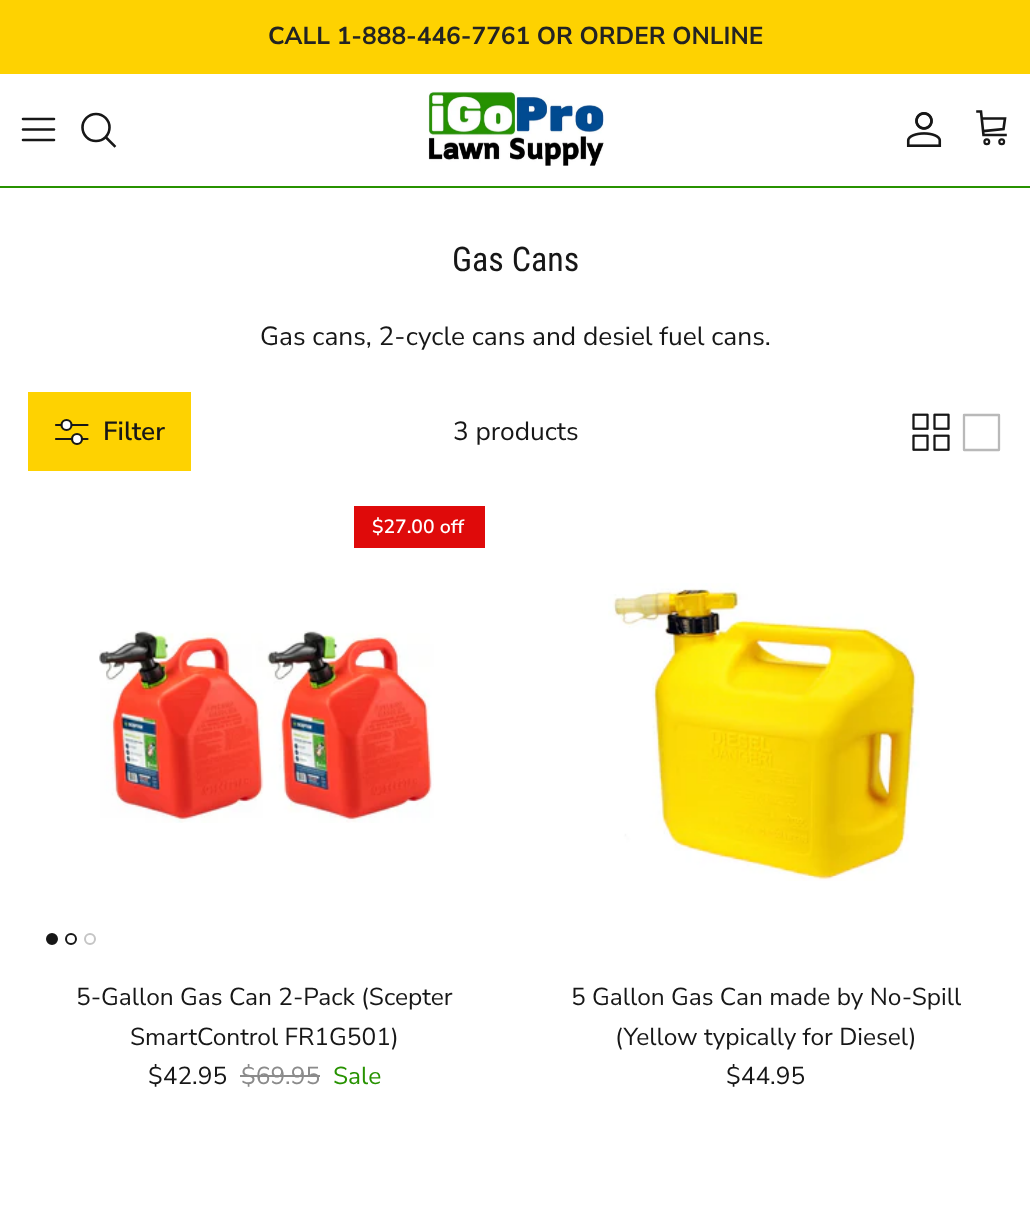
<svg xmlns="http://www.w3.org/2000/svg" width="1030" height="1205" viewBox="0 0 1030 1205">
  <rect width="100%" height="100%" fill="rgb(255,255,255)"/>
  <rect x="0" y="0" width="1030" height="74" fill="rgb(254,210,1)"/>
  <text x="268" y="44" font-family="Nunito Sans" font-size="24.5" font-weight="bold" fill="rgb(35,35,35)">CALL 1-888-446-7761 OR ORDER ONLINE</text>
  <rect x="0" y="186" width="1030" height="2" fill="rgb(39,146,0)"/>
  <path d="M23 129.5H54M23 119H54M23 140H54" fill="none" stroke="rgb(23,23,23)" stroke-width="2.6" stroke-linecap="round" stroke-linejoin="round"/>
  <circle cx="96" cy="127.5" r="13.5" fill="none" stroke="rgb(23,23,23)" stroke-width="2.6"/>
  <path d="M106.5 138L114.5 146" fill="none" stroke="rgb(23,23,23)" stroke-width="2.6" stroke-linecap="square"/>
  <image x="428" y="91" width="176" height="75" href="pic1.png"/>
  <image x="906" y="112" width="36" height="35" href="pic2.png"/>
  <path d="M977.5 111.5H981L983.5 135H1005.5M982 118.5H1005L1003.5 129L984.5 131" fill="none" stroke="rgb(23,23,23)" stroke-width="2.6" stroke-linecap="square"/>
  <circle cx="986.8" cy="141.8" r="2.4" fill="none" stroke="rgb(23,23,23)" stroke-width="2.2"/>
  <circle cx="1001.7" cy="141.8" r="2.4" fill="none" stroke="rgb(23,23,23)" stroke-width="2.2"/>
  <text x="452" y="271" font-family="Roboto Condensed" font-size="34" fill="rgb(23,23,23)">Gas Cans</text>
  <text x="260" y="345" font-family="Nunito Sans" font-size="26.25" fill="rgb(23,23,23)">Gas cans, 2-cycle cans and desiel fuel cans.</text>
  <rect x="28" y="392" width="163" height="79" fill="rgb(254,210,1)"/>
  <path d="M56 425H87.5M56 439H87.5" fill="none" stroke="rgb(23,23,23)" stroke-width="2.2" stroke-linecap="round" stroke-linejoin="round"/>
  <circle cx="66.5" cy="425" r="5" fill="rgb(255,255,255)" stroke="rgb(23,23,23)" stroke-width="2.2"/>
  <circle cx="77" cy="439" r="5" fill="rgb(255,255,255)" stroke="rgb(23,23,23)" stroke-width="2.2"/>
  <text x="103" y="440" font-family="Nunito Sans" font-size="26.25" font-weight="600" fill="rgb(23,23,23)">Filter</text>
  <text x="453" y="440" font-family="Nunito Sans" font-size="26.25" fill="rgb(23,23,23)">3 products</text>
  <image x="912" y="413" width="38" height="38" href="pic3.png"/>
  <path d="M964 415H999V450H964V415" fill="none" stroke="rgb(185,185,185)" stroke-width="2.3" stroke-linecap="round" stroke-linejoin="round"/>
  <rect x="354" y="506" width="131" height="42" fill="rgb(223,10,10)"/>
  <text x="372" y="533" font-family="'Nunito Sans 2'" font-size="19.25" font-weight="600" fill="rgb(255,255,255)">$27.00 off</text>
  <image x="99" y="630" width="335" height="193" href="pic4.png"/>
  <circle cx="52" cy="939" r="5" fill="rgb(23,23,23)" stroke="rgb(23,23,23)" stroke-width="2"/>
  <circle cx="71" cy="939" r="5" fill="none" stroke="rgb(23,23,23)" stroke-width="2"/>
  <circle cx="90" cy="939" r="5" fill="none" stroke="rgb(197,197,197)" stroke-width="2"/>
  <g font-family="Nunito Sans" font-size="24.5" fill="rgb(23,23,23)">
    <text x="76" y="1005">5-Gallon Gas Can 2-Pack (Scepter</text>
    <text x="130" y="1045">SmartControl FR1G501)</text>
    <text x="148" y="1084">$42.95</text>
  </g>
  <text x="241" y="1084" font-family="Nunito Sans" font-size="24.5" fill="rgb(139,139,139)">$69.95</text>
  <rect x="240" y="1075" width="80" height="2" fill="rgb(139,139,139)"/>
  <text x="333" y="1084" font-family="Nunito Sans" font-size="24.5" fill="rgb(39,146,0)">Sale</text>
  <image x="608" y="583" width="312" height="298" href="pic5.png"/>
  <g font-family="Nunito Sans" font-size="24.5" fill="rgb(23,23,23)">
    <text x="571" y="1005">5 Gallon Gas Can made by No-Spill</text>
    <text x="615" y="1045">(Yellow typically for Diesel)</text>
    <text x="726" y="1084">$44.95</text>
  </g>
</svg>
